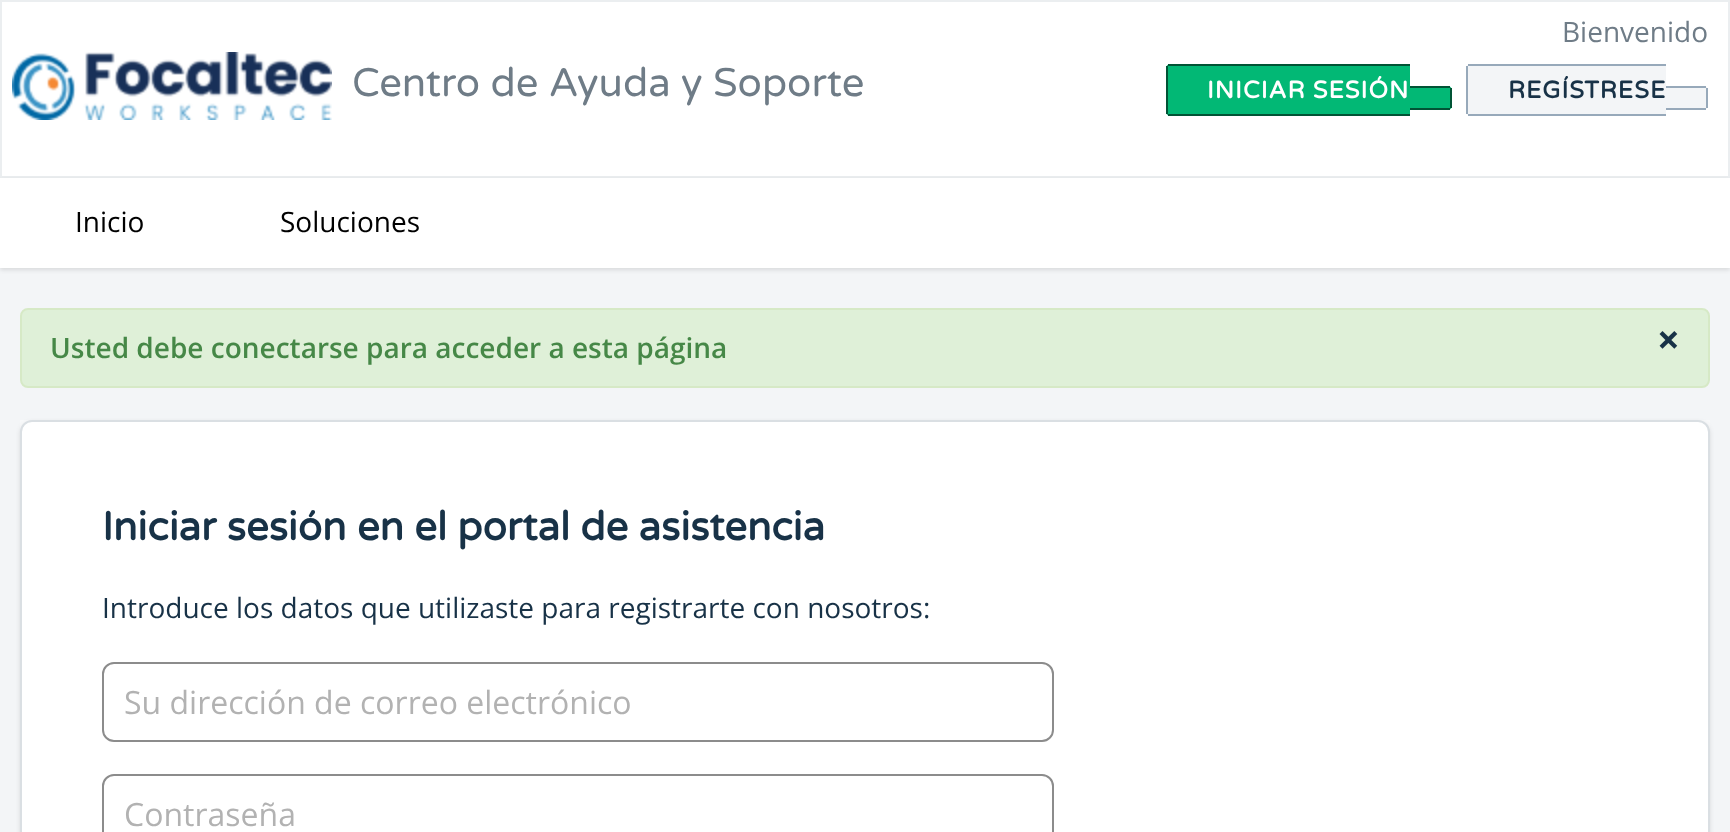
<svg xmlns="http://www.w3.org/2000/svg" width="1730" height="832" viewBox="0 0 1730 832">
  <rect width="100%" height="100%" fill="rgb(243,245,247)"/>
  <rect x="1" y="1" width="1728" height="176" fill="rgb(255,255,255)" stroke="rgb(235,238,240)" stroke-width="2"/>
  <image x="12" y="52" width="320" height="68" href="pic1.png"/>
  <text x="352" y="96" font-family="Varela Round" font-size="40" fill="rgb(111,124,135)">Centro de Ayuda y Soporte</text>
  <text x="1562" y="42" font-family="Open Sans" font-size="28" fill="rgb(111,124,135)">Bienvenido</text>
  <path d="M1170 64H1410V116H1170C1168 116 1166 114 1166 112V68C1166 66 1168 64 1170 64Z" fill="rgb(2,184,117)"/>
  <text x="1207" y="98" font-family="Varela Round" font-size="24" font-weight="bold" letter-spacing="1" fill="rgb(255,255,255)">INICIAR SESIÓN</text>
  <rect x="1168" y="64" width="242" height="2" fill="rgb(1,83,53)"/>
  <rect x="1168" y="114" width="242" height="2" fill="rgb(1,83,53)"/>
  <rect x="1166" y="66" width="2" height="48" fill="rgb(1,83,53)"/>
  <path d="M1410 86H1448C1450 86 1452 88 1452 90V106C1452 108 1450 110 1448 110H1410Z" fill="rgb(2,184,117)"/>
  <rect x="1410" y="86" width="40" height="2" fill="rgb(1,83,53)"/>
  <rect x="1450" y="88" width="2" height="20" fill="rgb(1,83,53)"/>
  <rect x="1410" y="108" width="40" height="2" fill="rgb(1,83,53)"/>
  <path d="M1470 64H1666V116H1470C1468 116 1466 114 1466 112V68C1466 66 1468 64 1470 64Z" fill="rgb(243,245,247)"/>
  <text x="1508" y="98" font-family="Varela Round" font-size="24" font-weight="bold" letter-spacing="1" fill="rgb(24,50,71)">REGÍSTRESE</text>
  <rect x="1468" y="64" width="198" height="2" fill="rgb(151,169,186)"/>
  <rect x="1468" y="114" width="198" height="2" fill="rgb(151,169,186)"/>
  <rect x="1466" y="66" width="2" height="48" fill="rgb(151,169,186)"/>
  <path d="M1666 86H1704C1706 86 1708 88 1708 90V106C1708 108 1706 110 1704 110H1666Z" fill="rgb(243,245,247)"/>
  <rect x="1666" y="86" width="40" height="2" fill="rgb(151,169,186)"/>
  <rect x="1706" y="88" width="2" height="20" fill="rgb(151,169,186)"/>
  <rect x="1666" y="108" width="40" height="2" fill="rgb(151,169,186)"/>
  <rect x="0" y="180" width="1730" height="90" fill="rgba(63,63,68,0.15)" filter="blur(2px)"/>
  <rect x="0" y="178" width="1730" height="90" fill="rgb(255,255,255)"/>
  <g font-family="Open Sans" font-size="28" fill="rgb(0,0,0)">
    <text x="75" y="232">Inicio</text>
    <text x="280" y="232">Soluciones</text>
  </g>
  <rect x="21" y="309" width="1688" height="78" rx="7" fill="rgb(223,240,216)" stroke="rgb(214,233,198)" stroke-width="2"/>
  <text x="50" y="358" font-family="Open Sans" font-size="28" font-weight="600" fill="rgb(70,136,71)">Usted debe conectarse para acceder a esta página</text>
  <text x="1657" y="354" font-family="Open Sans" font-size="40" font-weight="bold" fill="rgb(24,50,71)">×</text>
  <rect x="20" y="420" width="1690" height="12" fill="rgb(248,249,250)"/>
  <rect x="20" y="422" width="1690" height="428" rx="12" fill="rgba(63,63,68,0.15)" filter="blur(2px)"/>
  <rect x="21" y="421" width="1688" height="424" rx="11" fill="rgb(255,255,255)" stroke="rgb(218,223,227)" stroke-width="2"/>
  <text x="102" y="540" font-family="Varela Round" font-size="40" font-weight="bold" fill="rgb(24,50,71)">Iniciar sesión en el portal de asistencia</text>
  <text x="102" y="618" font-family="Open Sans" font-size="28" fill="rgb(24,50,71)">Introduce los datos que utilizaste para registrarte con nosotros:</text>
  <rect x="103" y="663" width="950" height="78" rx="11" fill="none" stroke="rgb(140,140,140)" stroke-width="2"/>
  <text x="124" y="714" font-family="Open Sans" font-size="32" fill="rgb(178,178,178)">Su dirección de correo electrónico</text>
  <rect x="103" y="775" width="950" height="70" rx="11" fill="none" stroke="rgb(140,140,140)" stroke-width="2"/>
  <text x="124" y="826" font-family="Open Sans" font-size="32" fill="rgb(178,178,178)">Contraseña</text>
</svg>
